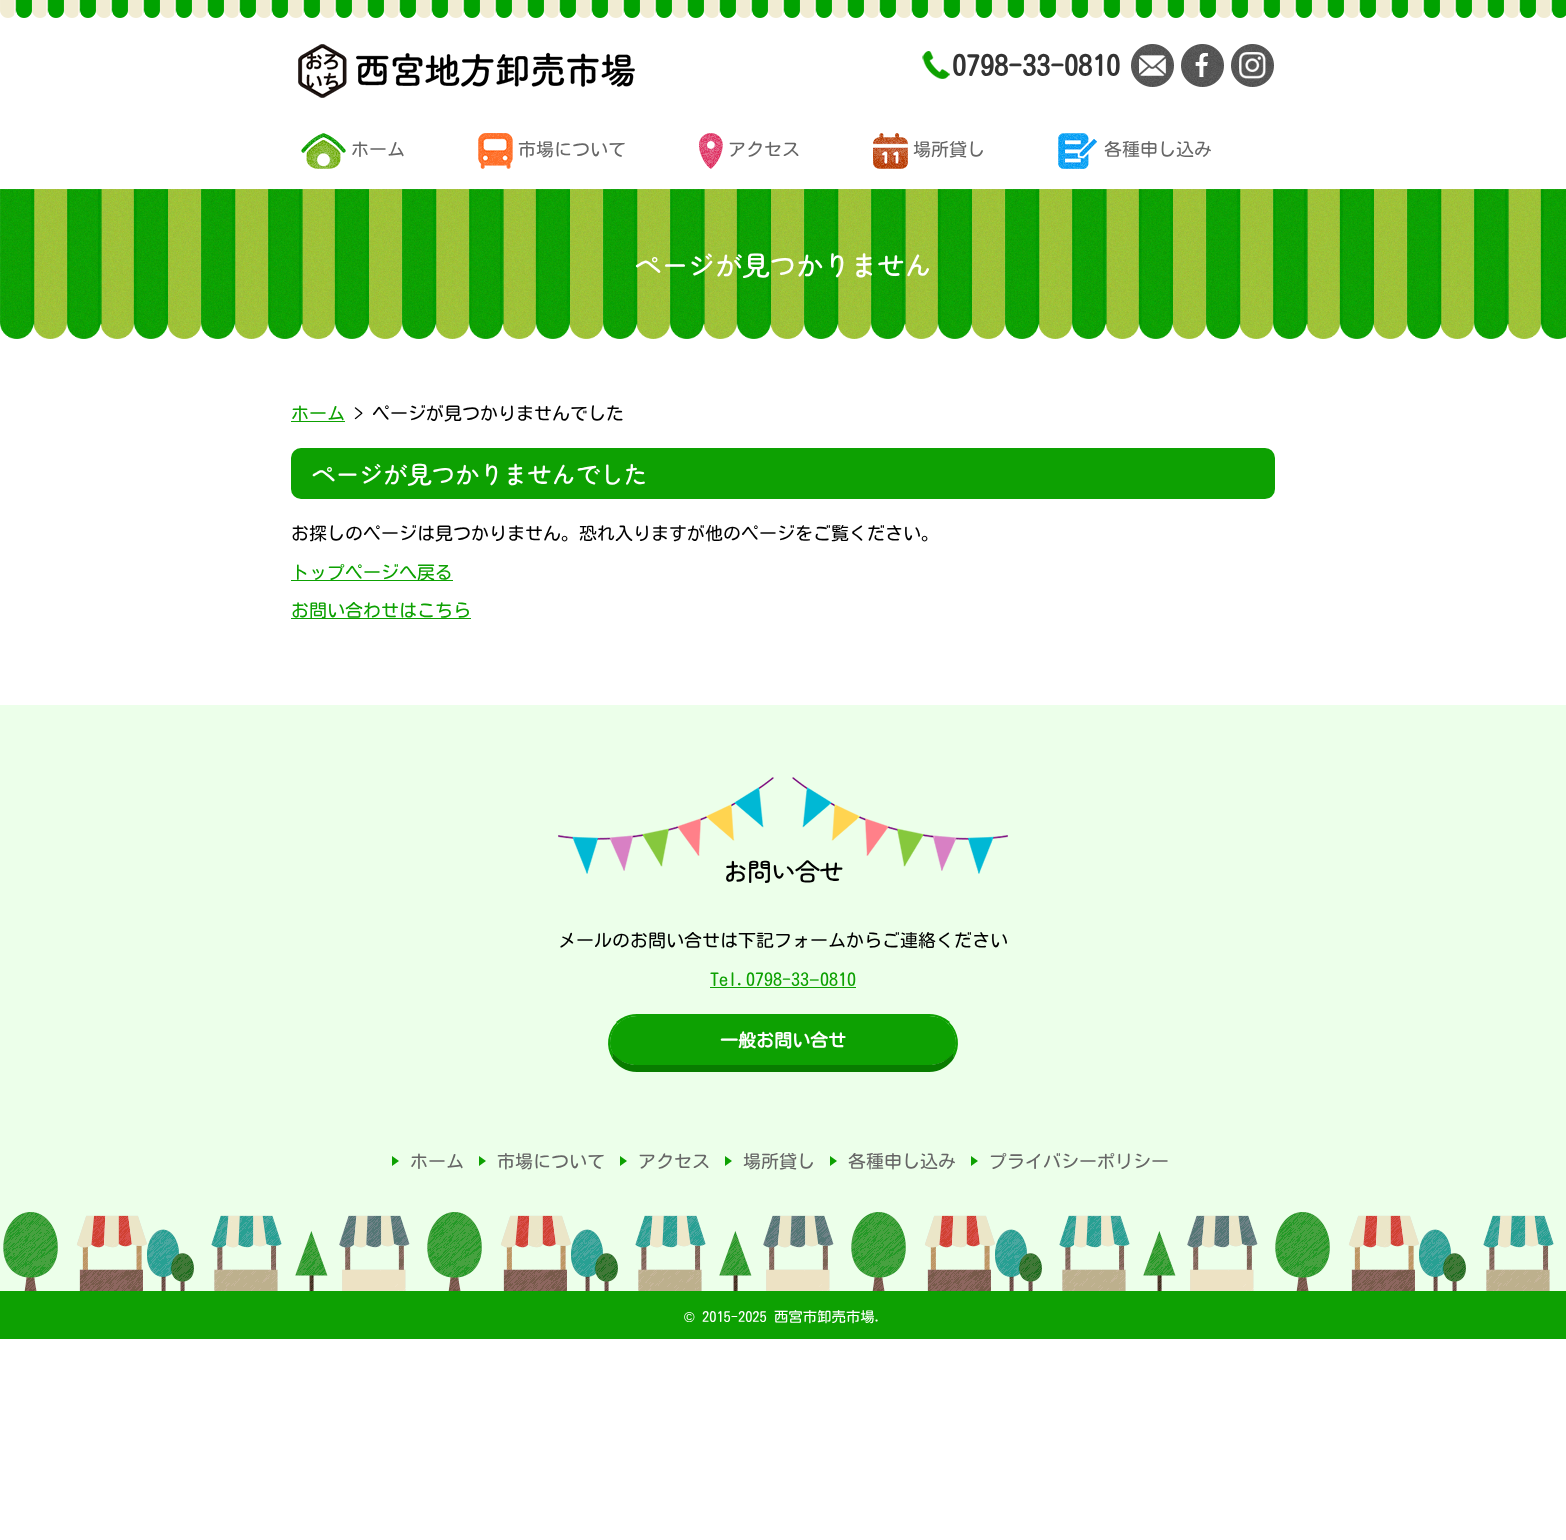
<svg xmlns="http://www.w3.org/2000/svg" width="1566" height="1540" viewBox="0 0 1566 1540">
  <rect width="100%" height="100%" fill="rgb(255,255,255)"/>
  <image x="0" y="0" width="1566" height="18" href="pic1.png"/>
  <image x="298" y="44" width="337" height="54" href="pic2.png"/>
  <image x="922" y="51" width="28" height="28" href="pic3.png"/>
  <text x="952" y="76" font-family="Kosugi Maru" font-size="28" font-weight="bold" fill="rgb(51,51,51)">0798-33-0810</text>
  <image x="1131" y="44" width="43" height="43" href="pic4.png"/>
  <image x="1181" y="44" width="43" height="43" href="pic5.png"/>
  <image x="1231" y="44" width="43" height="43" href="pic6.png"/>
  <image x="301" y="133" width="45" height="36" href="pic7.png"/>
  <text x="351" y="156" font-family="Kosugi Maru" font-size="18" fill="rgb(102,102,102)">ホーム</text>
  <image x="478" y="133" width="35" height="36" href="pic8.png"/>
  <text x="518" y="156" font-family="Kosugi Maru" font-size="18" fill="rgb(102,102,102)">市場について</text>
  <image x="699" y="133" width="24" height="36" href="pic9.png"/>
  <text x="728" y="156" font-family="Kosugi Maru" font-size="18" fill="rgb(102,102,102)">アクセス</text>
  <image x="873" y="133" width="35" height="36" href="pic10.png"/>
  <text x="913" y="156" font-family="Kosugi Maru" font-size="18" fill="rgb(102,102,102)">場所貸し</text>
  <image x="1058" y="133" width="39" height="36" href="pic11.png"/>
  <text x="1104" y="156" font-family="Kosugi Maru" font-size="18" fill="rgb(102,102,102)">各種申し込み</text>
  <image x="0" y="189" width="1566" height="150" href="pic12.png"/>
  <text x="634" y="276" font-family="Zen Maru Gothic" font-size="28" font-weight="500" letter-spacing="-1" fill="rgb(255,255,255)">ページが見つかりません</text>
  <text x="291" y="420" font-family="Kosugi Maru" font-size="18" fill="rgb(13,161,2)">ホーム</text>
  <rect x="291" y="421" width="54" height="1" fill="rgb(13,161,2)"/>
  <text x="354" y="420" font-family="Kosugi Maru" font-size="18" fill="rgb(0,0,0)">&gt; ページが見つかりませんでした</text>
  <rect x="291" y="448" width="984" height="51" rx="10" fill="rgb(13,161,2)"/>
  <text x="311" y="484" font-family="Zen Maru Gothic" font-size="25" font-weight="500" letter-spacing="-1" fill="rgb(255,255,255)">ページが見つかりませんでした</text>
  <text x="291" y="540" font-family="Kosugi Maru" font-size="18" fill="rgb(0,0,0)">お探しのページは見つかりません。恐れ入りますが他のページをご覧ください。</text>
  <rect x="291" y="580" width="162" height="1" fill="rgb(13,161,2)"/>
  <text x="291" y="579" font-family="Kosugi Maru" font-size="18" fill="rgb(13,161,2)">トップページへ戻る</text>
  <rect x="291" y="618" width="180" height="1" fill="rgb(13,161,2)"/>
  <text x="291" y="617" font-family="Kosugi Maru" font-size="18" fill="rgb(13,161,2)">お問い合わせはこちら</text>
  <rect x="0" y="705" width="1566" height="586" fill="rgb(236,255,234)"/>
  <image x="558" y="777" width="450" height="97" href="pic13.png"/>
  <text x="723" y="881" font-family="Zen Maru Gothic" font-size="25" font-weight="500" letter-spacing="-1" fill="rgb(0,0,0)">お問い合せ</text>
  <text x="558" y="947" font-family="Kosugi Maru" font-size="18" fill="rgb(0,0,0)">メールのお問い合せは下記フォームからご連絡ください</text>
  <text x="710" y="986" font-family="Kosugi Maru" font-size="18" fill="rgb(13,161,2)">Tel.0798-33</text>
  <text x="809" y="986" font-family="Liberation Sans" font-size="18" fill="rgb(13,161,2)">−</text>
  <rect x="710" y="987" width="146" height="1" fill="rgb(13,161,2)"/>
  <text x="820" y="986" font-family="Kosugi Maru" font-size="18" fill="rgb(13,161,2)">0810</text>
  <path d="M637 1016H929C944 1016 956 1028 956 1043C956 1055 944 1065 929 1065H637C622 1065 610 1055 610 1043C610 1028 622 1016 637 1016Z" fill="rgb(13,161,2)"/>
  <path d="M637 1014C629 1014 622 1017 616 1022L618 1024C623 1019 630 1016 637 1016H929C936 1016 943 1019 948 1024L950 1022C944 1017 937 1014 929 1014Z" fill="rgb(13,161,2)"/>
  <path d="M949.5 1022.5C959 1032 960.5 1046.5 954 1058L952.5 1053.5C959 1044 955.5 1031.5 948 1024Z" fill="rgb(13,161,2)"/>
  <path d="M637 1072H929C940 1072 949 1066 954 1058L953 1053C948 1060 939 1065 929 1065H637C627 1065 618 1060 613 1053L612 1058C617 1066 626 1072 637 1072Z" fill="rgb(8,124,0)"/>
  <path d="M612 1058C605.5 1046.5 607 1032 616.5 1022.5L618 1024C610.5 1031.5 607 1044 613.5 1053.5Z" fill="rgb(13,161,2)"/>
  <text x="720" y="1047" font-family="Kosugi Maru" font-size="18" font-weight="bold" fill="rgb(255,255,255)">一般お問い合せ</text>
  <path d="M392 1166V1156L399 1161Z" fill="rgb(13,161,2)"/>
  <text x="410" y="1168" font-family="Kosugi Maru" font-size="18" fill="rgb(102,102,102)">ホーム</text>
  <path d="M479 1166V1156L486 1161Z" fill="rgb(13,161,2)"/>
  <text x="497" y="1168" font-family="Kosugi Maru" font-size="18" fill="rgb(102,102,102)">市場について</text>
  <path d="M620 1166V1156L627 1161Z" fill="rgb(13,161,2)"/>
  <text x="638" y="1168" font-family="Kosugi Maru" font-size="18" fill="rgb(102,102,102)">アクセス</text>
  <path d="M725 1166V1156L732 1161Z" fill="rgb(13,161,2)"/>
  <text x="743" y="1168" font-family="Kosugi Maru" font-size="18" fill="rgb(102,102,102)">場所貸し</text>
  <path d="M830 1166V1156L837 1161Z" fill="rgb(13,161,2)"/>
  <text x="848" y="1168" font-family="Kosugi Maru" font-size="18" fill="rgb(102,102,102)">各種申し込み</text>
  <path d="M971 1166V1156L978 1161Z" fill="rgb(13,161,2)"/>
  <text x="989" y="1168" font-family="Kosugi Maru" font-size="18" fill="rgb(102,102,102)">プライバシーポリシー</text>
  <image x="3" y="1212" width="1551" height="79" href="pic14.png"/>
  <rect x="0" y="1291" width="1566" height="48" fill="rgb(13,161,2)"/>
  <text x="684" y="1322" font-family="Liberation Sans" font-size="14.4" fill="rgb(255,255,255)">©</text>
  <text x="702" y="1322" font-family="Kosugi Maru" font-size="14.4" fill="rgb(255,255,255)">2015-2025 西宮市卸売市場.</text>
</svg>
